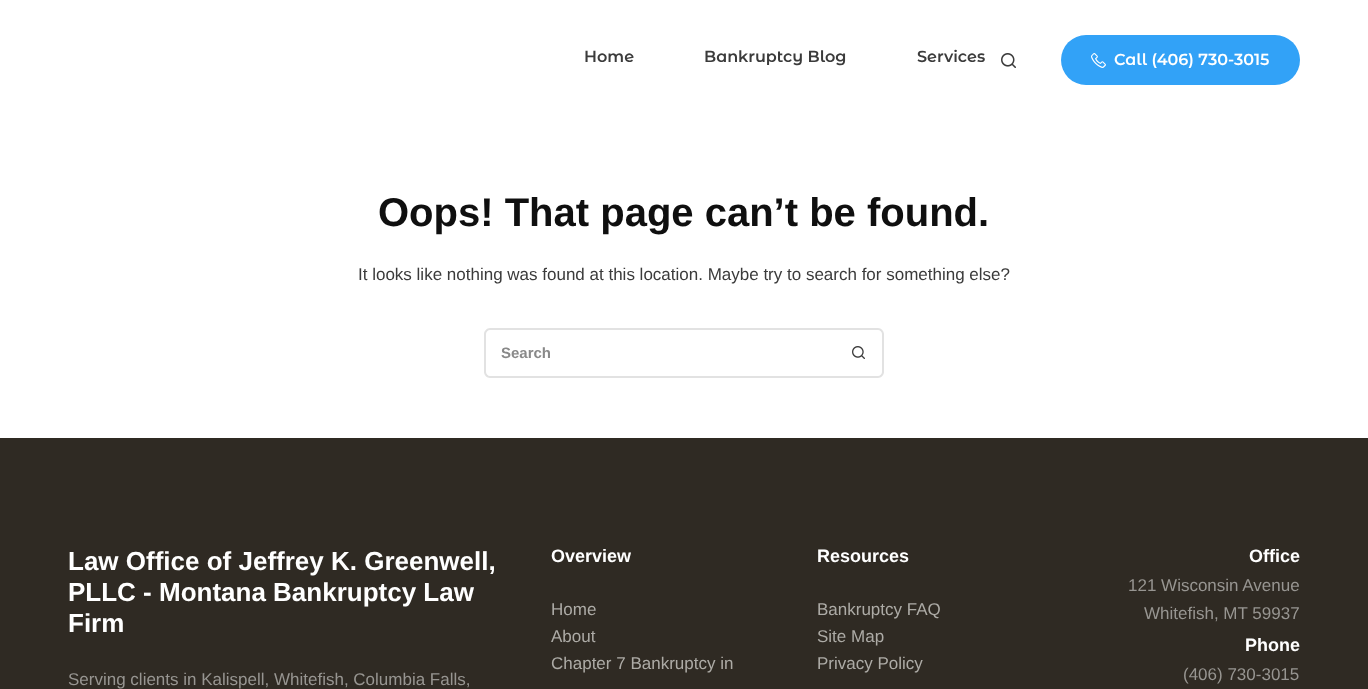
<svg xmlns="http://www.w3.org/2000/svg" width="1368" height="689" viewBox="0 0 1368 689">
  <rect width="100%" height="100%" fill="rgb(255,255,255)"/>
  <g font-family="Montserrat Alternates" font-size="16" font-weight="600" fill="rgb(59,59,59)">
    <text x="584" y="62">Home</text>
    <text x="704" y="62">Bankruptcy Blog</text>
    <text x="917" y="62">Services</text>
  </g>
  <image x="1001" y="53" width="15" height="15" href="pic1.png"/>
  <rect x="1061" y="35" width="239" height="50" rx="25" fill="rgb(50,162,247)"/>
  <image x="1091" y="53" width="15" height="15" href="pic2.png"/>
  <text x="1114" y="65" font-family="Montserrat Alternates" font-size="16" font-weight="600" fill="rgb(255,255,255)">Call (406) 730-3015</text>
  <text x="378" y="226" font-family="Liberation Sans" font-size="40" font-weight="bold" fill="rgb(15,15,15)">Oops! That page can’t be found.</text>
  <text x="358" y="280" font-family="Liberation Sans" font-size="17" fill="rgb(59,59,59)">It looks like nothing was found at this location. Maybe try to search for something else?</text>
  <path d="M490 328H834V378H490C487 378 484 375 484 372V334C484 331 487 328 490 328ZM490 330H834V376H490C488 376 486 374 486 372V334C486 332 488 330 490 330Z" fill="rgb(226,226,226)" fill-rule="evenodd"/>
  <text x="501" y="358" font-family="Liberation Sans" font-size="15" font-weight="bold" fill="rgb(137,137,137)">Search</text>
  <path d="M834 328H878C881 328 884 331 884 334V372C884 375 881 378 878 378H834ZM834 330H878C880 330 882 332 882 334V372C882 374 880 376 878 376H834Z" fill="rgb(226,226,226)" fill-rule="evenodd"/>
  <image x="852" y="346" width="13" height="13" href="pic3.png"/>
  <rect x="0" y="438" width="1368" height="251" fill="rgb(47,42,35)"/>
  <g font-family="Liberation Sans" font-size="26" font-weight="bold" fill="rgb(255,255,255)">
    <text>
      <tspan x="68" y="570">Law Office of Jeffrey K. Greenwell,</tspan>
      <tspan x="68" y="601">PLLC - Montana Bankruptcy Law</tspan>
      <tspan x="68" y="632">Firm</tspan>
    </text>
  </g>
  <text x="68" y="685" font-family="Liberation Sans" font-size="17" fill="rgb(151,149,145)">Serving clients in Kalispell, Whitefish, Columbia Falls,</text>
  <text x="551" y="562" font-family="Liberation Sans" font-size="18" font-weight="bold" fill="rgb(255,255,255)">Overview</text>
  <g font-family="Liberation Sans" font-size="17" fill="rgb(173,171,166)">
    <text>
      <tspan x="551" y="615">Home</tspan>
      <tspan x="551" y="642">About</tspan>
      <tspan x="551" y="669">Chapter 7 Bankruptcy in</tspan>
    </text>
  </g>
  <text x="817" y="562" font-family="Liberation Sans" font-size="18" font-weight="bold" fill="rgb(255,255,255)">Resources</text>
  <g font-family="Liberation Sans" font-size="17" fill="rgb(173,171,166)">
    <text>
      <tspan x="817" y="615">Bankruptcy FAQ</tspan>
      <tspan x="817" y="642">Site Map</tspan>
      <tspan x="817" y="669">Privacy Policy</tspan>
    </text>
  </g>
  <text x="1249" y="562" font-family="Liberation Sans" font-size="18" font-weight="bold" fill="rgb(255,255,255)">Office</text>
  <g font-family="Liberation Sans" font-size="17" fill="rgb(151,149,145)">
    <text x="1128" y="591">121 Wisconsin Avenue</text>
    <text x="1144" y="619">Whitefish, MT 59937</text>
  </g>
  <text x="1245" y="651" font-family="Liberation Sans" font-size="18" font-weight="bold" fill="rgb(255,255,255)">Phone</text>
  <text x="1183" y="680" font-family="Liberation Sans" font-size="17" fill="rgb(151,149,145)">(406) 730-3015</text>
</svg>
